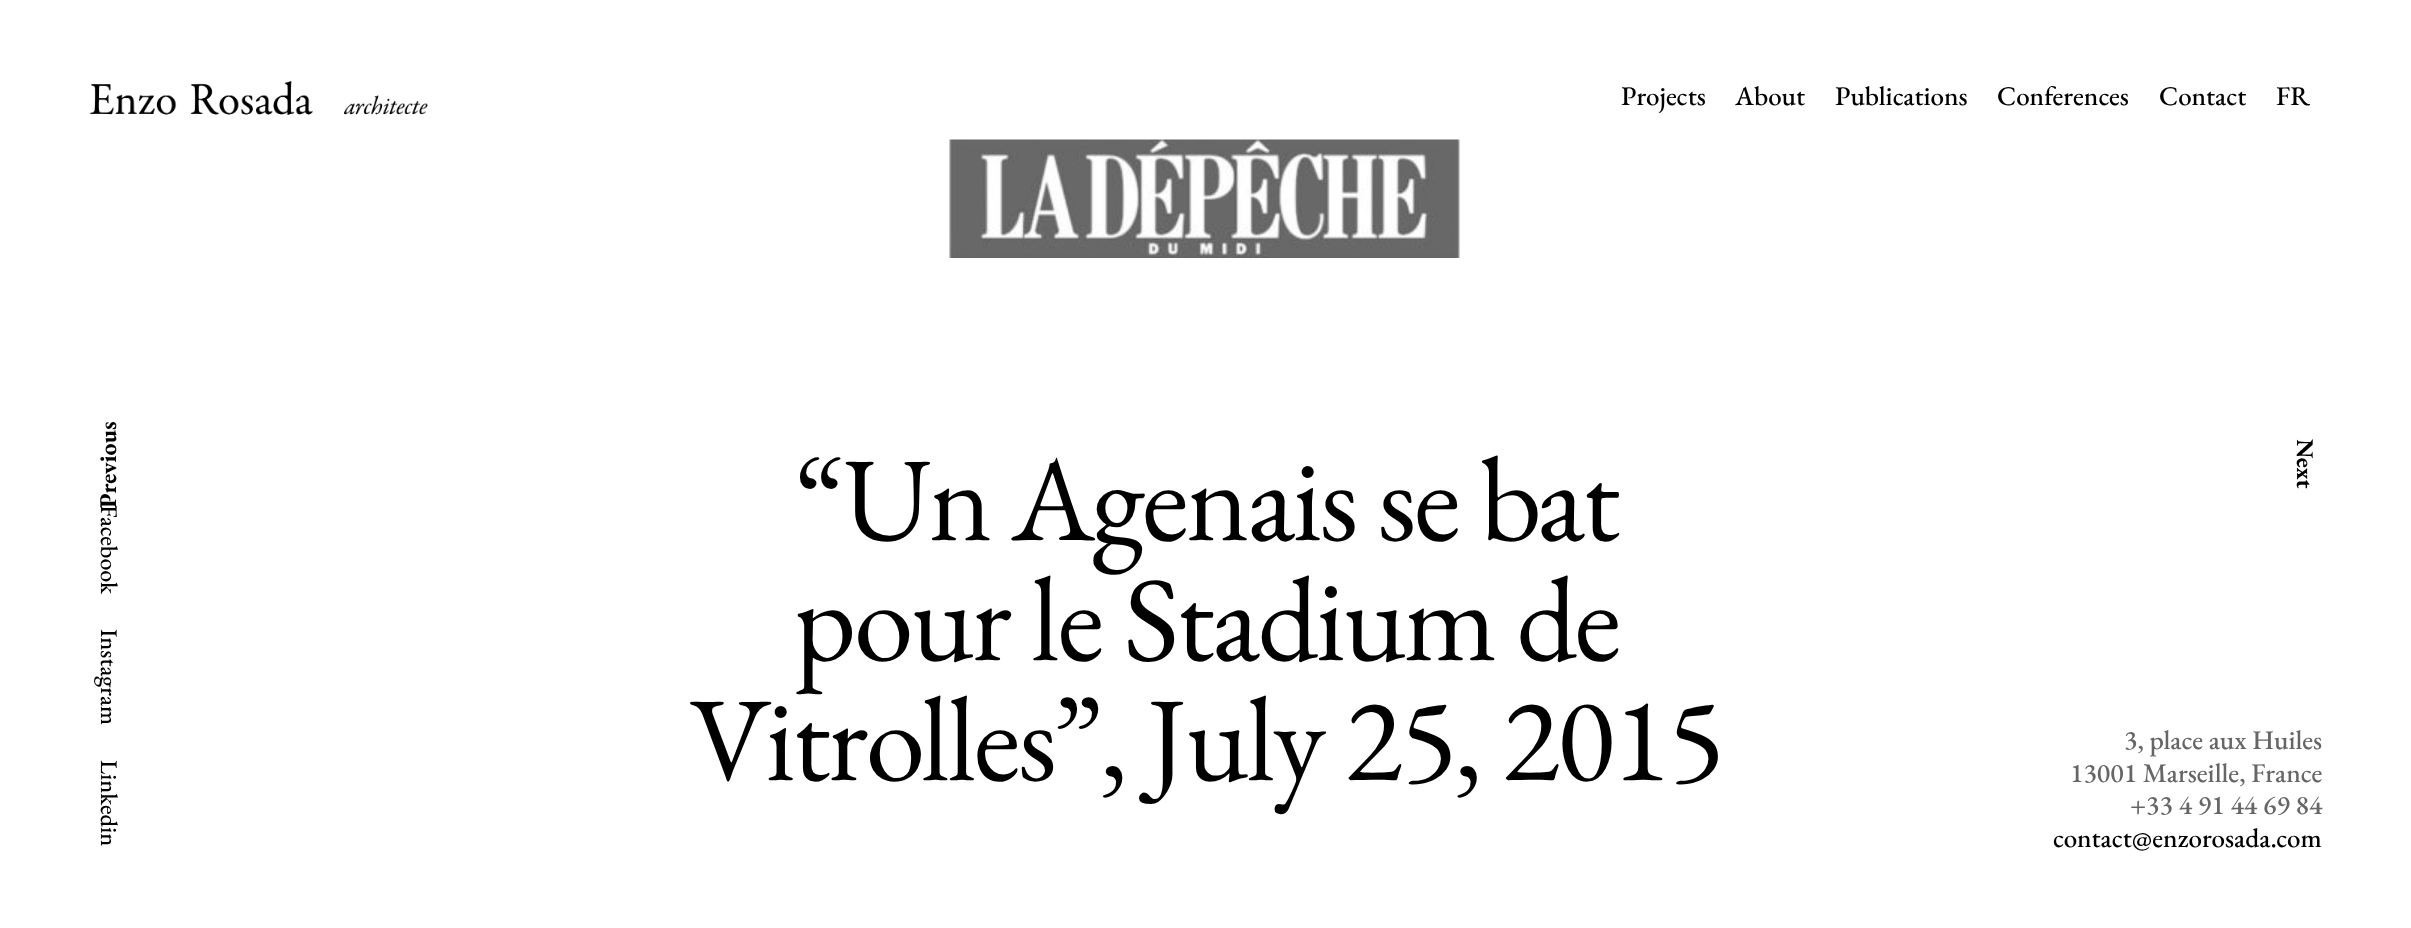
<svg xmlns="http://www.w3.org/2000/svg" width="2411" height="928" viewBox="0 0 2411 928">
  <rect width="100%" height="100%" fill="rgb(255,255,255)"/>
  <image x="90" y="81" width="338" height="34" href="pic1.png"/>
  <g font-family="EB Garamond" font-size="27" font-weight="500" fill="rgb(0,0,0)">
    <text x="1621" y="105">Projects</text>
    <text x="1735" y="105">About</text>
    <text x="1835" y="105">Publications</text>
    <text x="1997" y="105">Conferences</text>
    <text x="2159" y="105">Contact</text>
    <text x="2276" y="105">FR</text>
  </g>
  <g font-family="EB Garamond" font-size="24" font-weight="bold" fill="rgb(0,0,0)">
    <text x="116" y="508" transform="rotate(-90 116 508)">Previous</text>
    <text x="2297" y="439" transform="rotate(90 2297 439)">Next</text>
  </g>
  <image x="949" y="139" width="511" height="119" href="pic2.png"/>
  <g font-family="EB Garamond" font-size="120" letter-spacing="-2.4" fill="rgb(0,0,0)">
    <text x="795" y="540">“Un Agenais se bat</text>
    <text x="794" y="660">pour le Stadium de</text>
    <text x="690" y="780">Vitrolles”, July 25, 2015</text>
  </g>
  <g font-family="EB Garamond" font-size="24" font-weight="500" fill="rgb(0,0,0)">
    <text x="101" y="505" transform="rotate(90 101 505)">Facebook</text>
    <text x="101" y="629" transform="rotate(90 101 629)">Instagram</text>
    <text x="101" y="760" transform="rotate(90 101 760)">Linkedin</text>
  </g>
  <g font-family="EB Garamond" font-size="27" font-weight="500" fill="rgb(102,102,102)">
    <text x="2124" y="749">3, place aux Huiles</text>
    <text x="2070" y="782">13001 Marseille, France</text>
    <text x="2130" y="814">+33 4 91 44 69 84</text>
  </g>
  <text x="2053" y="847" font-family="EB Garamond" font-size="27" font-weight="500" fill="rgb(0,0,0)">contact@enzorosada.com</text>
</svg>
